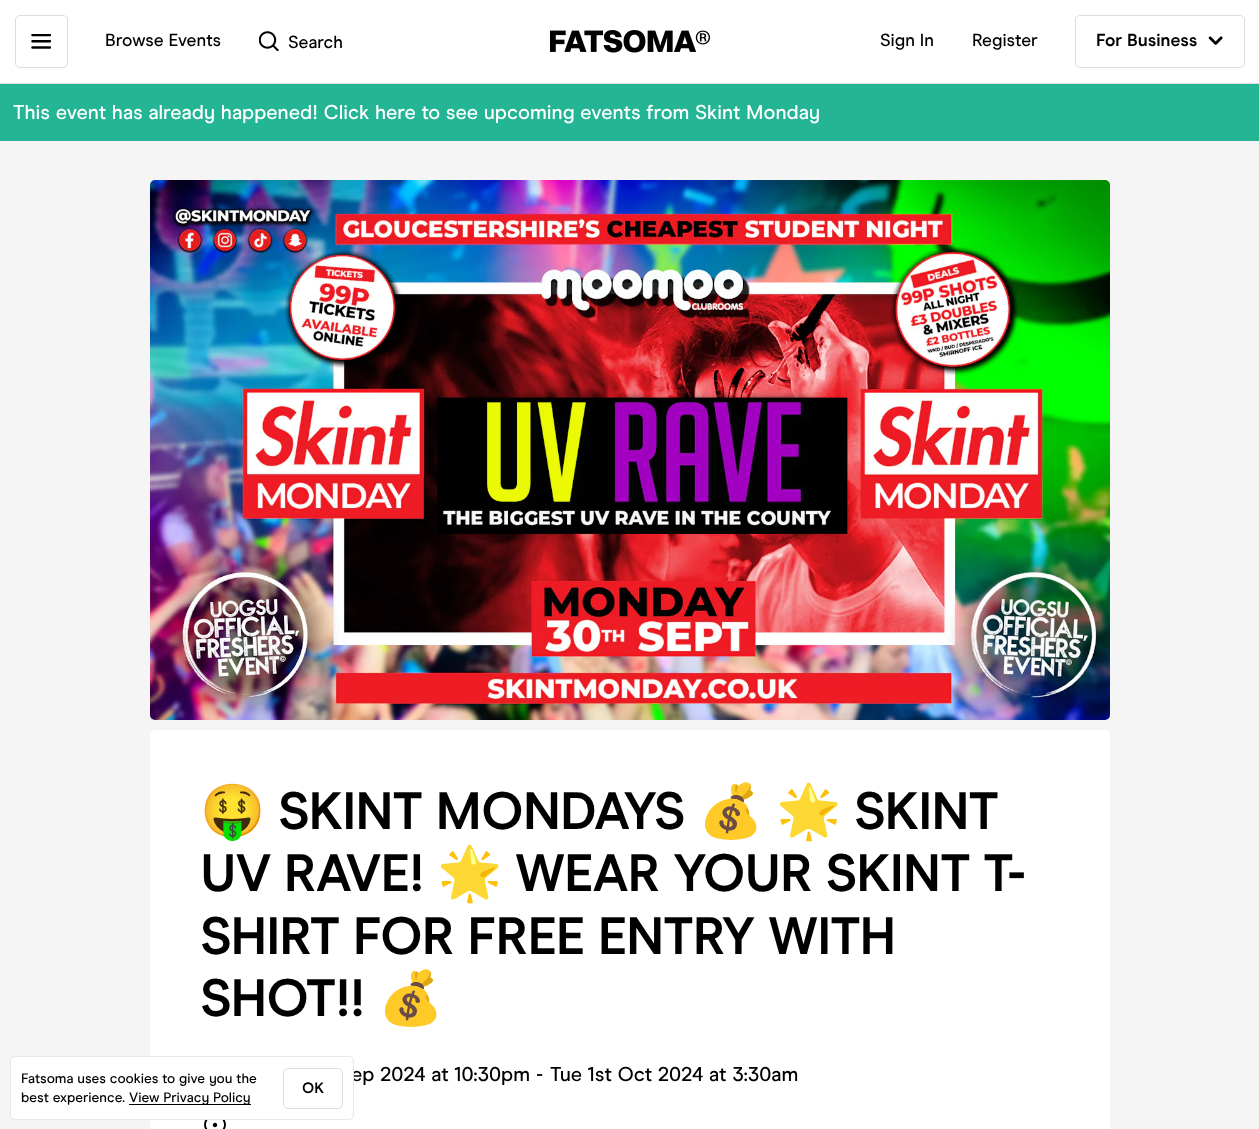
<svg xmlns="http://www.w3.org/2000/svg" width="1259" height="1129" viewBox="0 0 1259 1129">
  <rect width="100%" height="100%" fill="rgb(245,245,245)"/>
  <rect x="0" y="0" width="1259" height="83" fill="rgb(255,255,255)"/>
  <rect x="0" y="83" width="1259" height="1" fill="rgb(221,221,221)"/>
  <rect x="15.5" y="15.5" width="52" height="52" rx="4.5" fill="none" stroke="rgb(221,221,221)"/>
  <image x="31" y="34" width="20" height="15" href="pic1.png"/>
  <text x="105" y="46" font-family="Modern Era" font-size="17.5" font-weight="500" fill="rgb(0,0,0)">Browse Events</text>
  <image x="259" y="31" width="20" height="20" href="pic2.png"/>
  <text x="288" y="48" font-family="Modern Era" font-size="17.5" font-weight="500" fill="rgb(0,0,0)">Search</text>
  <image x="550" y="30" width="160" height="23" href="pic3.png"/>
  <g font-family="Modern Era" font-size="17.5" font-weight="500" fill="rgb(0,0,0)">
    <text x="880" y="46">Sign In</text>
    <text x="972" y="46">Register</text>
  </g>
  <rect x="1075.5" y="15.5" width="169" height="52" rx="4.5" fill="none" stroke="rgb(221,221,221)"/>
  <text x="1096" y="46" font-family="Modern Era" font-size="17.5" font-weight="bold" fill="rgb(0,0,0)">For Business</text>
  <image x="1208" y="36" width="15" height="9" href="pic4.png"/>
  <rect x="0" y="84" width="1259" height="57" fill="rgb(36,181,149)"/>
  <text x="13" y="119" font-family="Modern Era" font-size="20" font-weight="500" fill="rgb(255,255,255)">This event has already happened! Click here to see upcoming events from Skint Monday</text>
  <rect x="150" y="730" width="960" height="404" rx="5" fill="rgb(255,255,255)"/>
  <text x="351" y="1081" font-family="Modern Era" font-size="20" font-weight="500" fill="rgb(0,0,0)">ep 2024 at 10:30pm</text>
  <rect x="10.5" y="1056.5" width="343" height="63" rx="4.5" fill="rgb(255,255,255)" stroke="rgb(231,231,231)"/>
  <g font-family="Modern Era" font-size="13.75" font-weight="500" fill="rgb(0,0,0)">
    <text>
      <tspan x="21" y="1083">Fatsoma uses cookies to give you the</tspan>
      <tspan x="21" y="1102">best experience.</tspan>
    </text>
  </g>
  <rect x="129" y="1104" width="122" height="1" fill="rgb(0,0,0)"/>
  <text x="129" y="1102" font-family="Modern Era" font-size="13.75" font-weight="500" fill="rgb(0,0,0)">View Privacy Policy</text>
  <rect x="283.5" y="1068.5" width="59" height="40" rx="4.5" fill="none" stroke="rgb(221,221,221)"/>
  <text x="302" y="1093" font-family="Modern Era" font-size="15" font-weight="bold" fill="rgb(0,0,0)">OK</text>
  <image x="150" y="180" width="960" height="540" href="pic5.png"/>
  <text x="200" y="829" font-family="Noto Color Emoji" font-size="52.5" font-weight="bold" letter-spacing="-1" fill="rgb(0,0,0)">🤑</text>
  <text x="278" y="829" font-family="Modern Era" font-size="52.5" font-weight="bold" letter-spacing="-1" fill="rgb(0,0,0)">SKINT MONDAYS</text>
  <g font-family="Noto Color Emoji" font-size="52.5" font-weight="bold" letter-spacing="-1" fill="rgb(0,0,0)">
    <text x="698" y="829">💰</text>
    <text x="776" y="829">🌟</text>
  </g>
  <g font-family="Modern Era" font-size="52.5" font-weight="bold" letter-spacing="-1" fill="rgb(0,0,0)">
    <text x="854" y="829">SKINT</text>
    <text x="200" y="891">UV RAVE!</text>
  </g>
  <text x="437" y="891" font-family="Noto Color Emoji" font-size="52.5" font-weight="bold" letter-spacing="-1" fill="rgb(0,0,0)">🌟</text>
  <g font-family="Modern Era" font-size="52.5" font-weight="bold" letter-spacing="-1" fill="rgb(0,0,0)">
    <text x="515" y="891">WEAR YOUR SKINT T-</text>
    <text>
      <tspan x="200" y="954">SHIRT FOR FREE ENTRY WITH</tspan>
      <tspan x="200" y="1016">SHOT!!</tspan>
    </text>
  </g>
  <text x="378" y="1016" font-family="Noto Color Emoji" font-size="52.5" font-weight="bold" letter-spacing="-1" fill="rgb(0,0,0)">💰</text>
  <g font-family="Modern Era" font-size="20" font-weight="500" fill="rgb(0,0,0)">
    <text x="536" y="1081">-</text>
    <text x="550" y="1081">Tue 1st Oct 2024 at 3:30am</text>
  </g>
  <image x="204" y="1120" width="22" height="9" href="pic6.png"/>
</svg>
